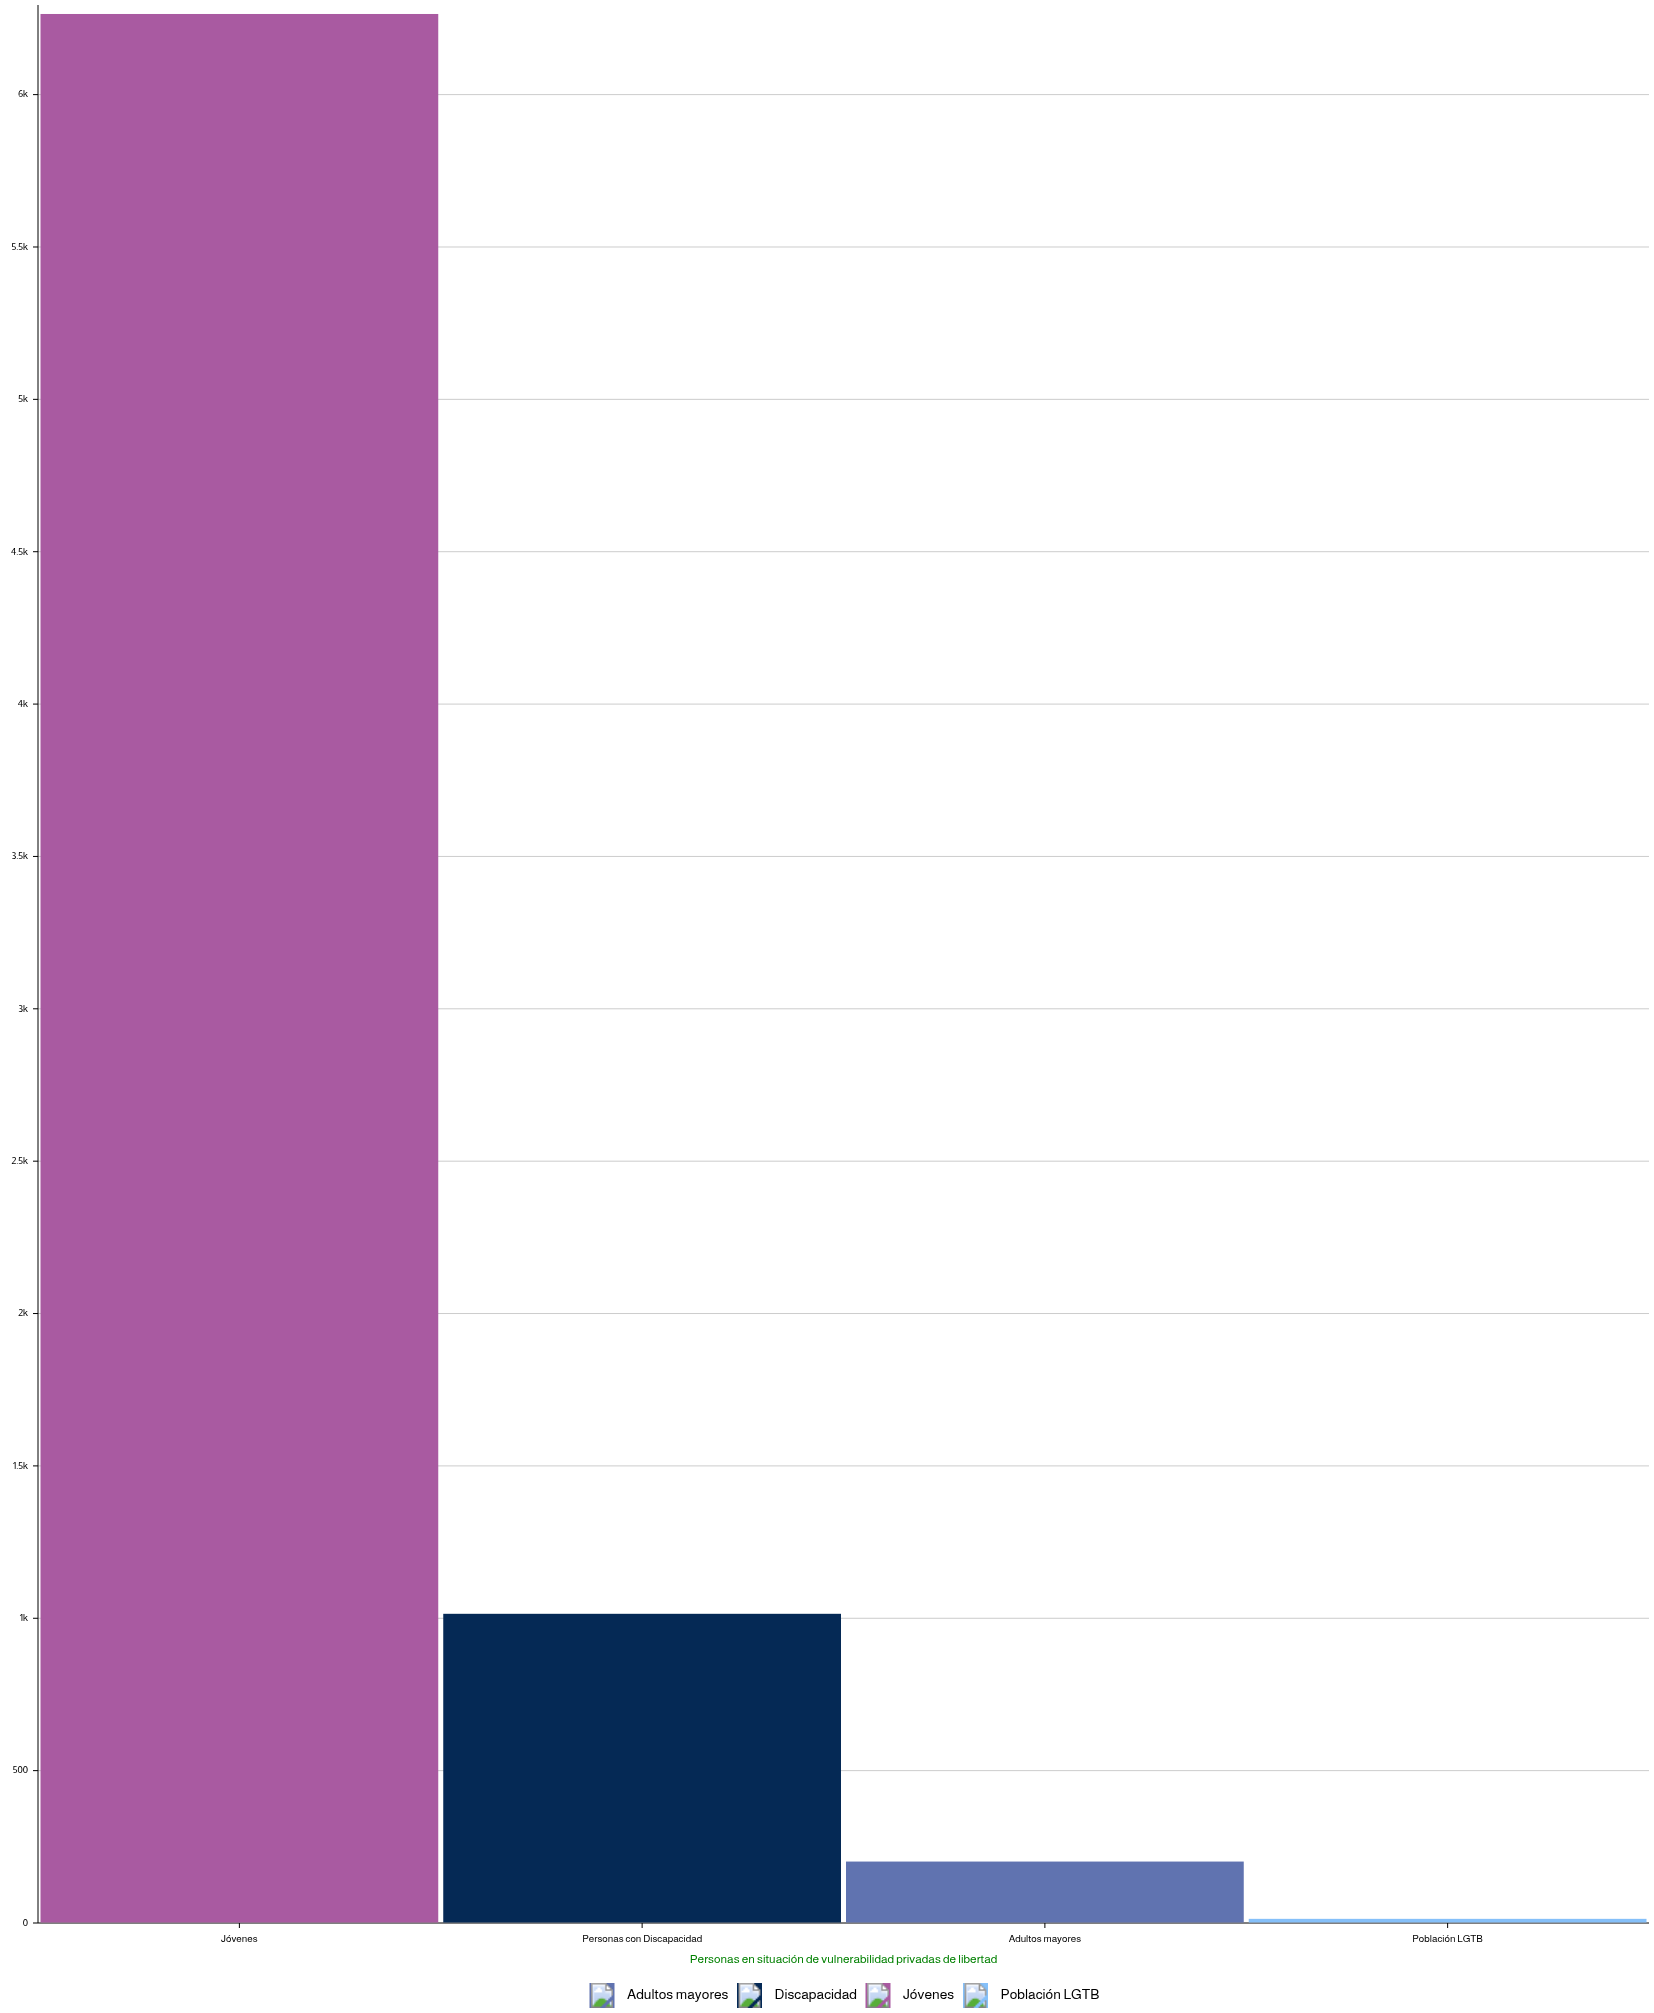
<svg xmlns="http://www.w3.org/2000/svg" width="1654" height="2013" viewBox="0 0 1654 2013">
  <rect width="100%" height="100%" fill="rgb(255,255,255)"/>
  <image x="11" y="5" width="1638" height="2003" href="pic1.png"/>
</svg>
